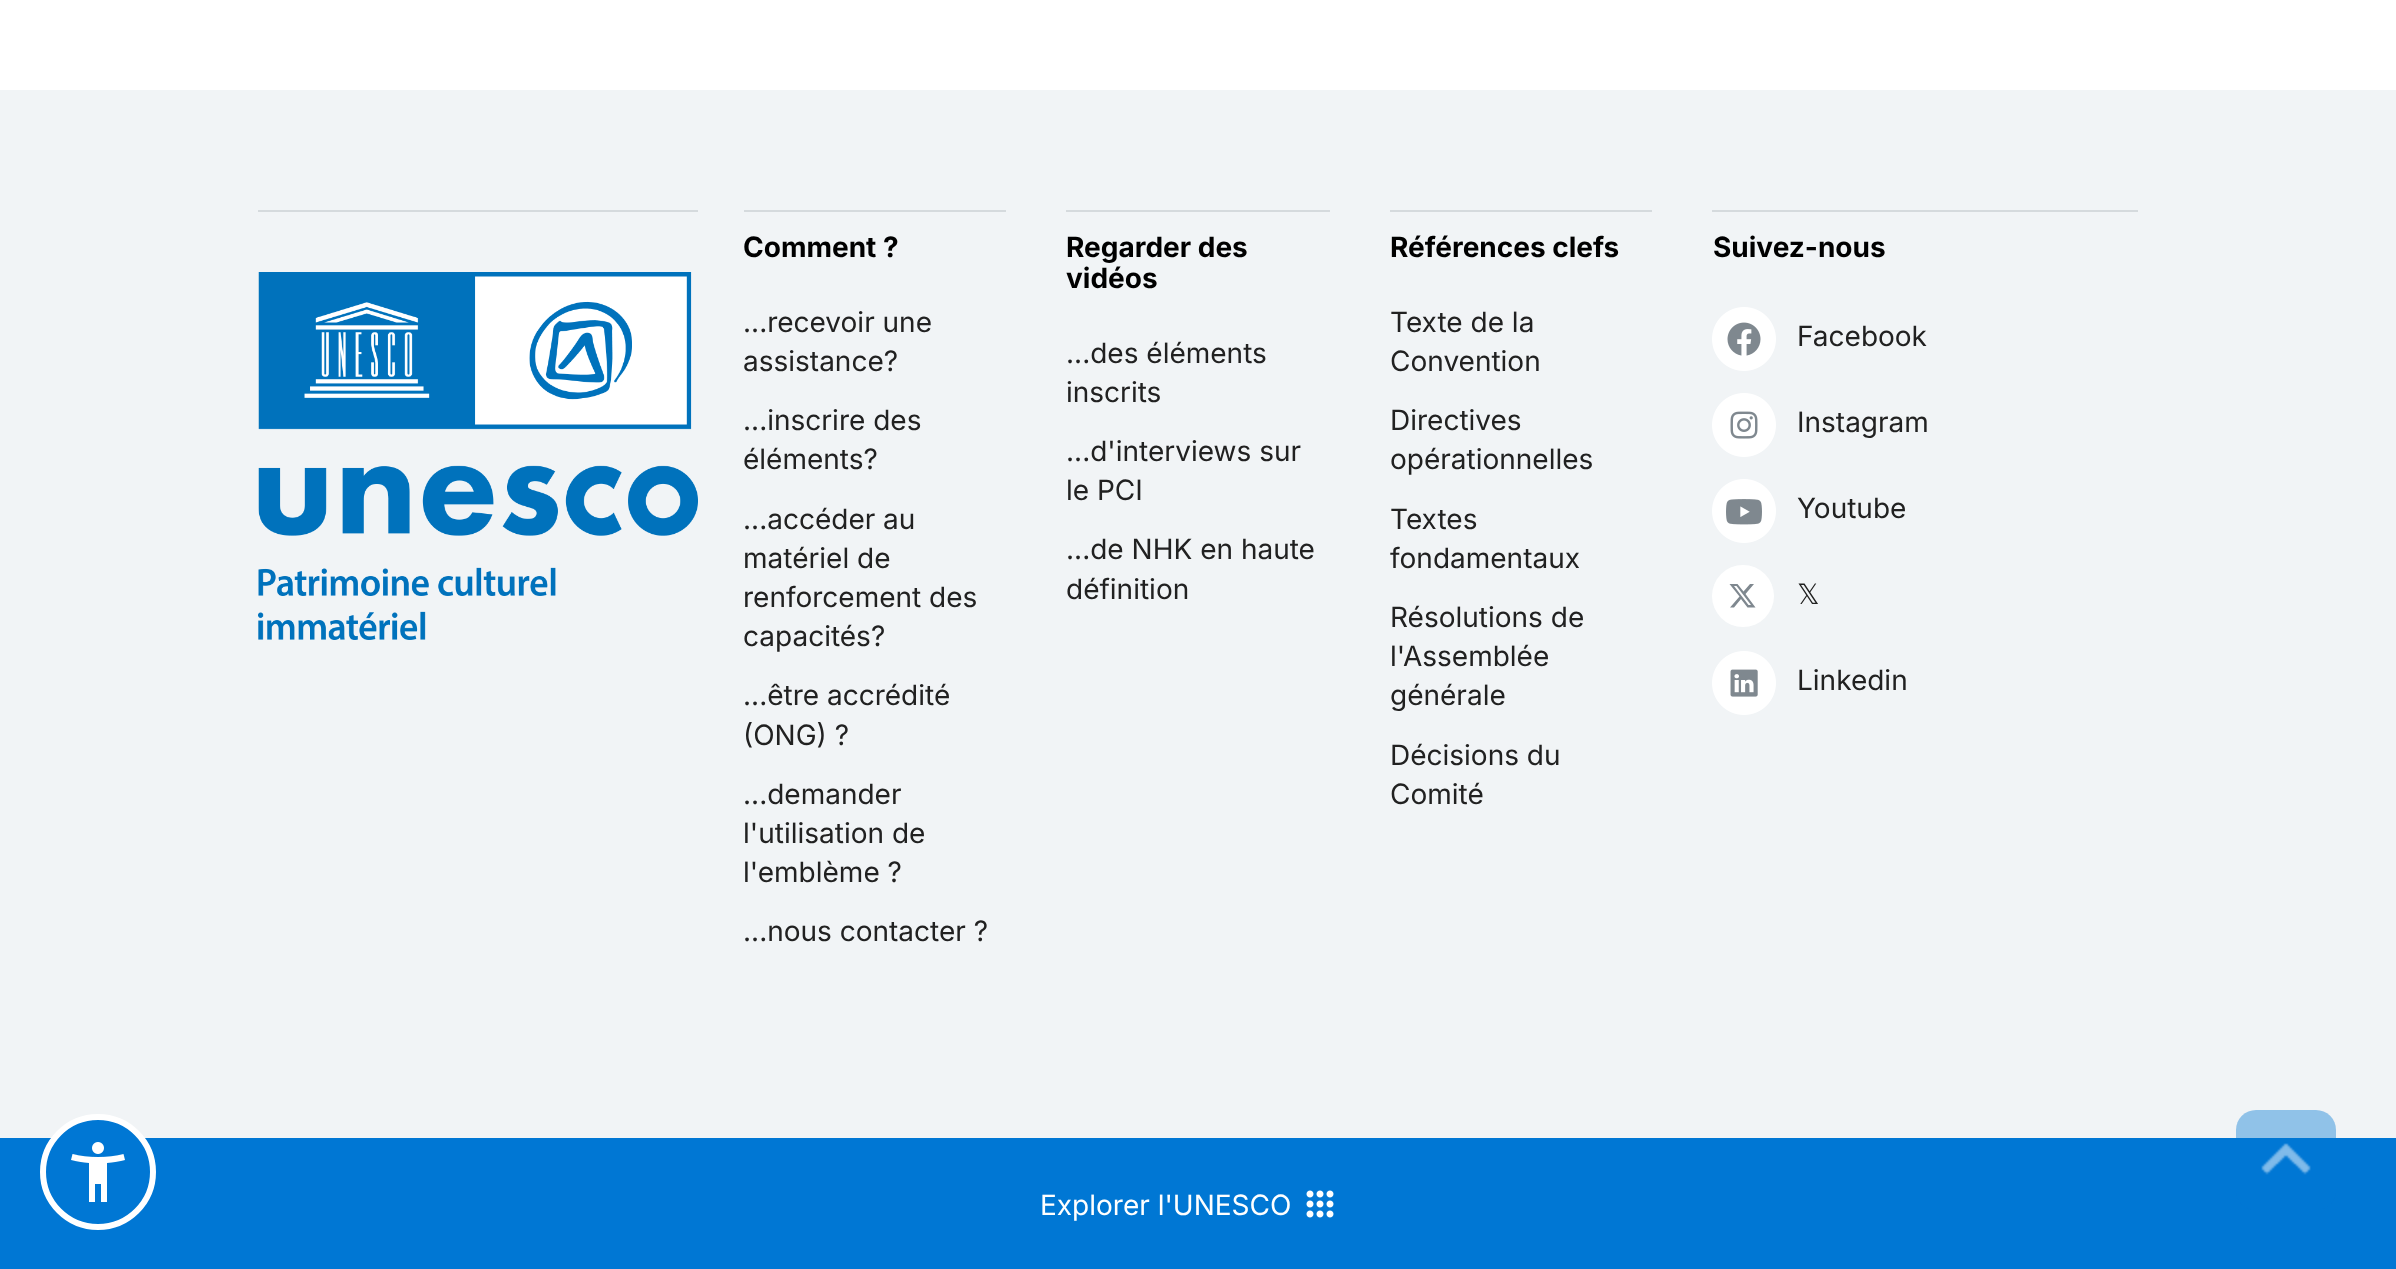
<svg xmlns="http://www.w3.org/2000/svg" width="2396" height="1269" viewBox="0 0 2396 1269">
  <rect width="100%" height="100%" fill="rgb(255,255,255)"/>
  <rect x="0" y="90" width="2396" height="1048" fill="rgb(241,244,246)"/>
  <rect x="0" y="1138" width="2396" height="131" fill="rgb(0,119,212)"/>
  <circle cx="98" cy="1172" r="55" fill="rgb(0,119,212)" stroke="rgb(255,255,255)" stroke-width="6"/>
  <image x="71" y="1142" width="54" height="60" href="pic1.png"/>
  <rect x="258" y="210" width="440" height="2" fill="rgb(213,218,221)"/>
  <image x="258" y="272" width="440" height="368" href="pic2.png"/>
  <rect x="744" y="210" width="262" height="2" fill="rgb(213,218,221)"/>
  <text x="743" y="257" font-family="Inter" font-size="28" font-weight="bold" fill="rgb(0,0,0)">Comment ?</text>
  <g font-family="Inter" font-size="28" fill="rgb(33,33,33)">
    <text>
      <tspan x="743" y="332">...recevoir une</tspan>
      <tspan x="743" y="371">assistance?</tspan>
    </text>
    <text>
      <tspan x="743" y="430">...inscrire des</tspan>
      <tspan x="743" y="469">éléments?</tspan>
    </text>
    <text>
      <tspan x="743" y="529">...accéder au</tspan>
      <tspan x="743" y="568">matériel de</tspan>
      <tspan x="743" y="607">renforcement des</tspan>
      <tspan x="743" y="646">capacités?</tspan>
    </text>
    <text>
      <tspan x="743" y="705">...être accrédité</tspan>
      <tspan x="743" y="745">(ONG) ?</tspan>
    </text>
    <text>
      <tspan x="743" y="804">...demander</tspan>
      <tspan x="743" y="843">l'utilisation de</tspan>
      <tspan x="743" y="882">l'emblème ?</tspan>
    </text>
    <text x="743" y="941">...nous contacter ?</text>
  </g>
  <rect x="1066" y="210" width="264" height="2" fill="rgb(213,218,221)"/>
  <g font-family="Inter" font-size="28" font-weight="bold" fill="rgb(0,0,0)">
    <text>
      <tspan x="1066" y="257">Regarder des</tspan>
      <tspan x="1066" y="288">vidéos</tspan>
    </text>
  </g>
  <g font-family="Inter" font-size="28" fill="rgb(33,33,33)">
    <text>
      <tspan x="1066" y="363">...des éléments</tspan>
      <tspan x="1066" y="402">inscrits</tspan>
    </text>
    <text>
      <tspan x="1066" y="461">...d'interviews sur</tspan>
      <tspan x="1066" y="500">le PCI</tspan>
    </text>
    <text>
      <tspan x="1066" y="559">...de NHK en haute</tspan>
      <tspan x="1066" y="599">définition</tspan>
    </text>
  </g>
  <rect x="1390" y="210" width="262" height="2" fill="rgb(213,218,221)"/>
  <text x="1390" y="257" font-family="Inter" font-size="28" font-weight="bold" fill="rgb(0,0,0)">Références clefs</text>
  <g font-family="Inter" font-size="28" fill="rgb(33,33,33)">
    <text>
      <tspan x="1390" y="332">Texte de la</tspan>
      <tspan x="1390" y="371">Convention</tspan>
    </text>
    <text>
      <tspan x="1390" y="430">Directives</tspan>
      <tspan x="1390" y="469">opérationnelles</tspan>
    </text>
    <text>
      <tspan x="1390" y="529">Textes</tspan>
      <tspan x="1390" y="568">fondamentaux</tspan>
    </text>
    <text>
      <tspan x="1390" y="627">Résolutions de</tspan>
      <tspan x="1390" y="666">l'Assemblée</tspan>
      <tspan x="1390" y="705">générale</tspan>
    </text>
    <text>
      <tspan x="1390" y="765">Décisions du</tspan>
      <tspan x="1390" y="804">Comité</tspan>
    </text>
  </g>
  <rect x="1712" y="210" width="426" height="2" fill="rgb(213,218,221)"/>
  <text x="1713" y="257" font-family="Inter" font-size="28" font-weight="bold" fill="rgb(0,0,0)">Suivez-nous</text>
  <image x="1712" y="307" width="64" height="64" href="pic3.png"/>
  <text x="1797" y="346" font-family="Inter" font-size="28" fill="rgb(33,33,33)">Facebook</text>
  <image x="1712" y="393" width="64" height="64" href="pic4.png"/>
  <text x="1797" y="432" font-family="Inter" font-size="28" fill="rgb(33,33,33)">Instagram</text>
  <image x="1712" y="479" width="64" height="64" href="pic5.png"/>
  <text x="1797" y="518" font-family="Inter" font-size="28" fill="rgb(33,33,33)">Youtube</text>
  <circle cx="1743" cy="596" r="31" fill="rgb(255,255,255)"/>
  <text x="1797" y="604" font-family="DejaVu Sans" font-size="28" fill="rgb(33,33,33)">𝕏</text>
  <path d="M1750 584H1754L1745.5 594L1755.5 607.5H1747.5L1741 599L1734 607.5H1730L1739.5 596.5L1729.5 584H1737.5L1743.5 591.5ZM1748.5 605H1751L1736.5 586H1734Z" fill="rgb(127,136,143)"/>
  <image x="1712" y="651" width="64" height="64" href="pic6.png"/>
  <text x="1797" y="690" font-family="Inter" font-size="28" fill="rgb(33,33,33)">Linkedin</text>
  <text x="1040" y="1215" font-family="Inter" font-size="28" fill="rgb(255,255,255)">Explorer l'UNESCO</text>
  <image x="1306" y="1190" width="28" height="28" href="pic7.png"/>
  <rect x="2236" y="1110" width="100" height="100" rx="20" fill="rgba(0,119,212,0.4)"/>
  <image x="2261" y="1143" width="50" height="32" href="pic8.png"/>
</svg>
